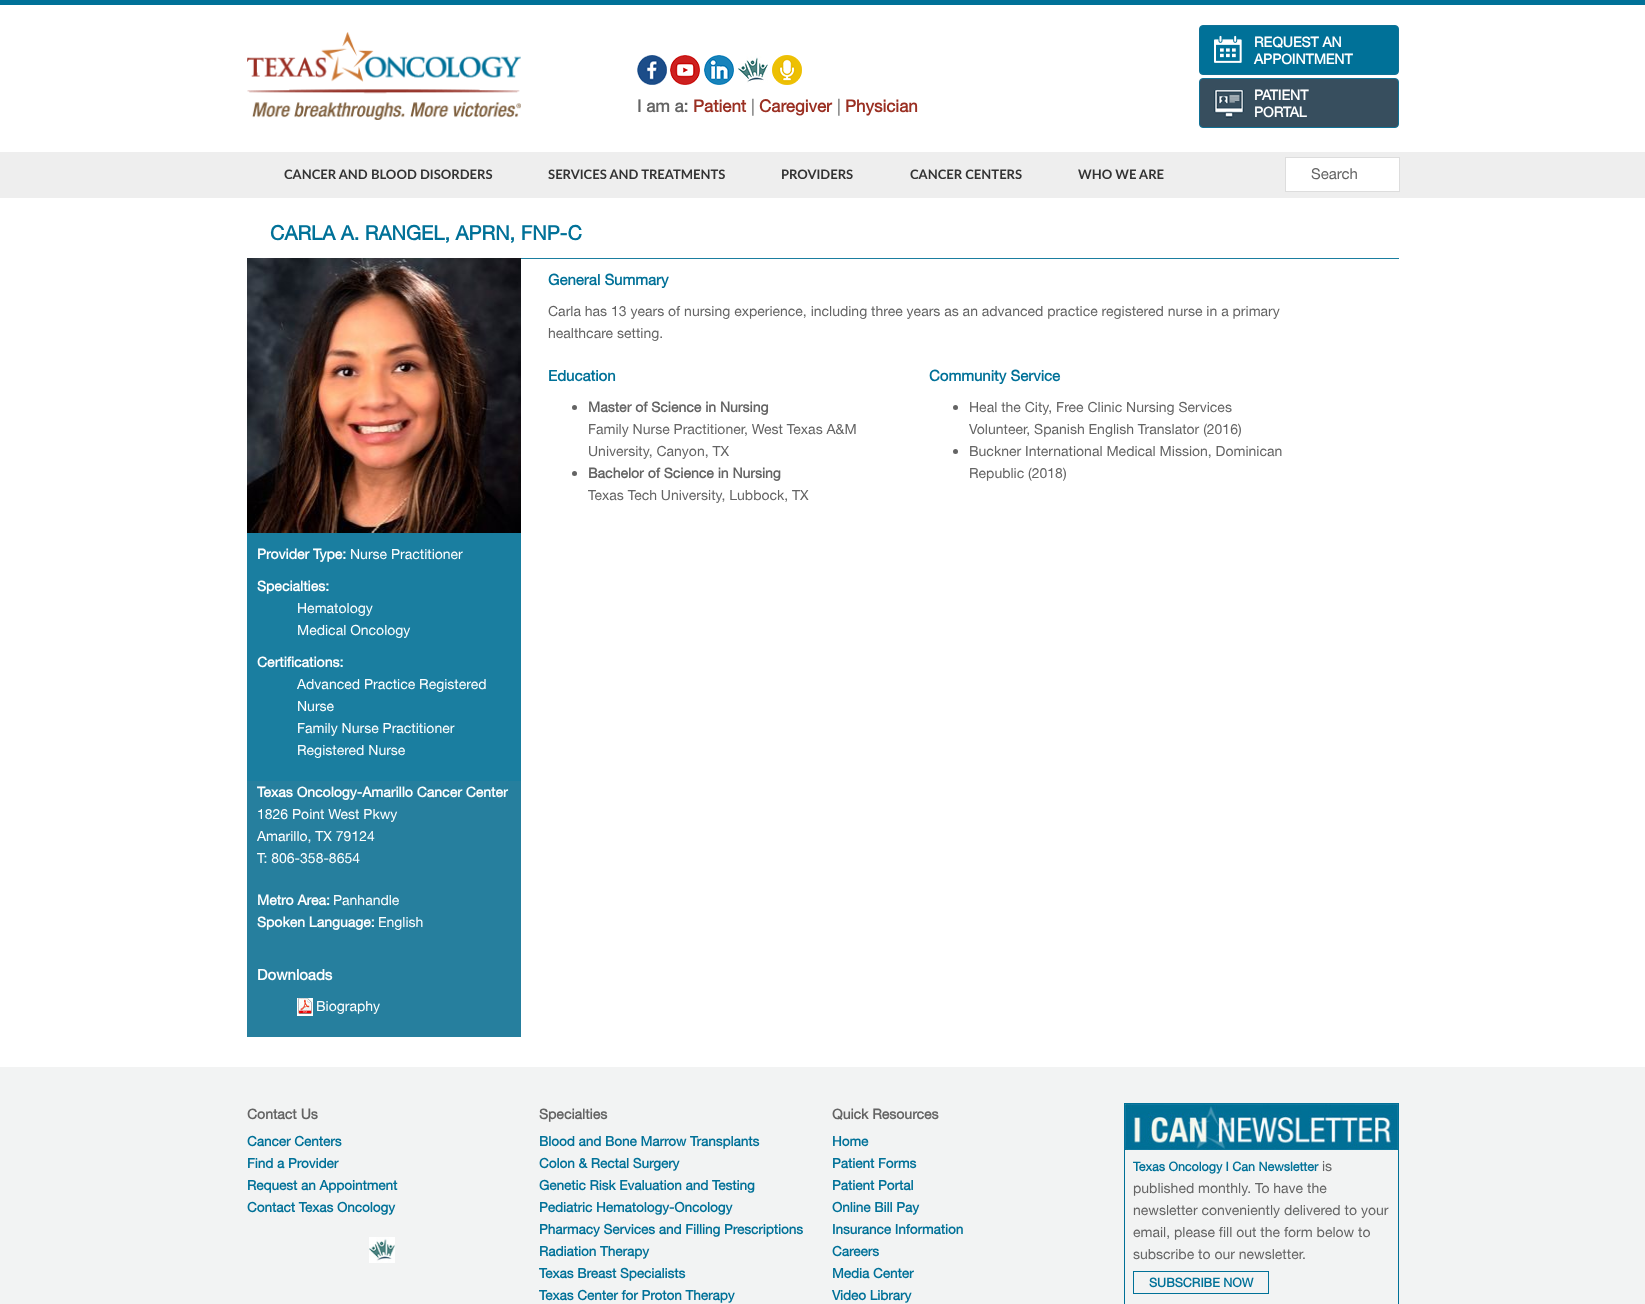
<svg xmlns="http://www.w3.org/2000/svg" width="1645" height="1304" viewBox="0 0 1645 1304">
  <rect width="100%" height="100%" fill="rgb(255,255,255)"/>
  <rect x="0" y="0" width="1645" height="5" fill="rgb(0,113,152)"/>
  <image x="247" y="32" width="274" height="88" href="pic1.png"/>
  <image x="637" y="55" width="30" height="30" href="pic2.png"/>
  <image x="670" y="55" width="30" height="30" href="pic3.png"/>
  <image x="704" y="55" width="30" height="30" href="pic4.png"/>
  <image x="738" y="56" width="30" height="27" href="pic5.png"/>
  <image x="772" y="55" width="30" height="30" href="pic6.png"/>
  <text x="637" y="112" font-family="'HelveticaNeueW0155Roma'" font-size="17" font-weight="bold" fill="rgb(100,100,100)">I am a:</text>
  <text x="693" y="112" font-family="'HelveticaNeueW0155Roma'" font-size="17" font-weight="bold" fill="rgb(154,47,34)">Patient</text>
  <text x="751" y="112" font-family="'HelveticaNeueW0155Roma'" font-size="17" fill="rgb(100,100,100)">|</text>
  <text x="759" y="112" font-family="'HelveticaNeueW0155Roma'" font-size="17" font-weight="bold" fill="rgb(154,47,34)">Caregiver</text>
  <text x="837" y="112" font-family="'HelveticaNeueW0155Roma'" font-size="17" fill="rgb(100,100,100)">|</text>
  <text x="845" y="112" font-family="'HelveticaNeueW0155Roma'" font-size="17" font-weight="bold" fill="rgb(154,47,34)">Physician</text>
  <rect x="1199.5" y="25.5" width="199" height="49" rx="3.5" fill="rgb(0,113,152)" stroke="rgb(15,114,150)"/>
  <image x="1214" y="35" width="28" height="28" href="pic7.png"/>
  <g font-family="'HelveticaNeueW0155Roma'" font-size="14" font-weight="bold" fill="rgb(255,255,255)">
    <text>
      <tspan x="1254" y="47">REQUEST AN</tspan>
      <tspan x="1254" y="64">APPOINTMENT</tspan>
    </text>
  </g>
  <rect x="1199.5" y="78.5" width="199" height="49" rx="3.5" fill="rgb(55,78,94)" stroke="rgb(15,114,150)"/>
  <image x="1214" y="89" width="30" height="29" href="pic8.png"/>
  <g font-family="'HelveticaNeueW0155Roma'" font-size="14" font-weight="bold" fill="rgb(255,255,255)">
    <text>
      <tspan x="1254" y="100">PATIENT</tspan>
      <tspan x="1254" y="117">PORTAL</tspan>
    </text>
  </g>
  <rect x="0" y="152" width="1645" height="46" fill="rgb(238,238,238)"/>
  <g font-family="Lato" font-size="13" font-weight="bold" fill="rgb(51,51,51)">
    <text x="284" y="179">CANCER AND BLOOD DISORDERS</text>
    <text x="548" y="179">SERVICES AND TREATMENTS</text>
    <text x="781" y="179">PROVIDERS</text>
    <text x="910" y="179">CANCER CENTERS</text>
    <text x="1078" y="179">WHO WE ARE</text>
  </g>
  <rect x="1285.5" y="157.5" width="114" height="34" fill="rgb(255,255,255)" stroke="rgb(221,221,221)"/>
  <text x="1311" y="179" font-family="'HelveticaNeueW0155Roma'" font-size="15" fill="rgb(100,100,100)">Search</text>
  <rect x="521" y="258" width="878" height="1" fill="rgb(26,126,160)"/>
  <text x="270" y="240" font-family="'HelveticaNeueW0155Roma'" font-size="20" font-weight="bold" fill="rgb(0,113,152)">CARLA A. RANGEL, APRN, FNP-C</text>
  <text x="548" y="285" font-family="'HelveticaNeueW0155Roma'" font-size="15" font-weight="bold" fill="rgb(0,113,152)">General Summary</text>
  <g font-family="'HelveticaNeueW0155Roma'" font-size="14" fill="rgb(100,100,100)">
    <text>
      <tspan x="548" y="316">Carla has 13 years of nursing experience, including three years as an advanced practice registered nurse in a primary</tspan>
      <tspan x="548" y="338">healthcare setting.</tspan>
    </text>
  </g>
  <text x="548" y="381" font-family="'HelveticaNeueW0155Roma'" font-size="15" font-weight="bold" fill="rgb(0,113,152)">Education</text>
  <circle cx="574.5" cy="407.5" r="2.5" fill="rgb(100,100,100)"/>
  <text x="588" y="412" font-family="'HelveticaNeueW0155Roma'" font-size="14" font-weight="bold" fill="rgb(100,100,100)">Master of Science in Nursing</text>
  <g font-family="'HelveticaNeueW0155Roma'" font-size="14" fill="rgb(100,100,100)">
    <text>
      <tspan x="588" y="434">Family Nurse Practitioner, West Texas A&amp;M</tspan>
      <tspan x="588" y="456">University, Canyon, TX</tspan>
    </text>
  </g>
  <circle cx="574.5" cy="473.5" r="2.5" fill="rgb(100,100,100)"/>
  <text x="588" y="478" font-family="'HelveticaNeueW0155Roma'" font-size="14" font-weight="bold" fill="rgb(100,100,100)">Bachelor of Science in Nursing</text>
  <text x="588" y="500" font-family="'HelveticaNeueW0155Roma'" font-size="14" fill="rgb(100,100,100)">Texas Tech University, Lubbock, TX</text>
  <text x="929" y="381" font-family="'HelveticaNeueW0155Roma'" font-size="15" font-weight="bold" fill="rgb(0,113,152)">Community Service</text>
  <circle cx="955.5" cy="407.5" r="2.5" fill="rgb(100,100,100)"/>
  <g font-family="'HelveticaNeueW0155Roma'" font-size="14" fill="rgb(100,100,100)">
    <text>
      <tspan x="969" y="412">Heal the City, Free Clinic Nursing Services</tspan>
      <tspan x="969" y="434">Volunteer, Spanish English Translator (2016)</tspan>
    </text>
  </g>
  <circle cx="955.5" cy="451.5" r="2.5" fill="rgb(100,100,100)"/>
  <g font-family="'HelveticaNeueW0155Roma'" font-size="14" fill="rgb(100,100,100)">
    <text>
      <tspan x="969" y="456">Buckner International Medical Mission, Dominican</tspan>
      <tspan x="969" y="478">Republic (2018)</tspan>
    </text>
  </g>
  <image x="247" y="258" width="274" height="275" href="pic9.png"/>
  <rect x="247" y="533" width="274" height="248" fill="rgb(26,126,160)"/>
  <text x="257" y="559" font-family="'HelveticaNeueW0155Roma'" font-size="14" font-weight="bold" fill="rgb(255,255,255)">Provider Type:</text>
  <text x="350" y="559" font-family="'HelveticaNeueW0155Roma'" font-size="14" fill="rgb(255,255,255)">Nurse Practitioner</text>
  <text x="257" y="591" font-family="'HelveticaNeueW0155Roma'" font-size="14" font-weight="bold" fill="rgb(255,255,255)">Specialties:</text>
  <g font-family="'HelveticaNeueW0155Roma'" font-size="14" fill="rgb(255,255,255)">
    <text>
      <tspan x="297" y="613">Hematology</tspan>
      <tspan x="297" y="635">Medical Oncology</tspan>
    </text>
  </g>
  <text x="257" y="667" font-family="'HelveticaNeueW0155Roma'" font-size="14" font-weight="bold" fill="rgb(255,255,255)">Certifications:</text>
  <g font-family="'HelveticaNeueW0155Roma'" font-size="14" fill="rgb(255,255,255)">
    <text>
      <tspan x="297" y="689">Advanced Practice Registered</tspan>
      <tspan x="297" y="711">Nurse</tspan>
      <tspan x="297" y="733">Family Nurse Practitioner</tspan>
      <tspan x="297" y="755">Registered Nurse</tspan>
    </text>
  </g>
  <rect x="247" y="781" width="274" height="256" fill="rgb(38,127,158)"/>
  <text x="257" y="797" font-family="'HelveticaNeueW0155Roma'" font-size="14" font-weight="bold" fill="rgb(255,255,255)">Texas Oncology-Amarillo Cancer Center</text>
  <g font-family="'HelveticaNeueW0155Roma'" font-size="14" fill="rgb(255,255,255)">
    <text>
      <tspan x="257" y="819">1826 Point West Pkwy</tspan>
      <tspan x="257" y="841">Amarillo, TX 79124</tspan>
      <tspan x="257" y="863">T: 806-358-8654</tspan>
    </text>
  </g>
  <text x="257" y="905" font-family="'HelveticaNeueW0155Roma'" font-size="14" font-weight="bold" fill="rgb(255,255,255)">Metro Area:</text>
  <text x="333" y="905" font-family="'HelveticaNeueW0155Roma'" font-size="14" fill="rgb(255,255,255)">Panhandle</text>
  <text x="257" y="927" font-family="'HelveticaNeueW0155Roma'" font-size="14" font-weight="bold" fill="rgb(255,255,255)">Spoken Language:</text>
  <text x="378" y="927" font-family="'HelveticaNeueW0155Roma'" font-size="14" fill="rgb(255,255,255)">English</text>
  <text x="257" y="980" font-family="'HelveticaNeueW0155Roma'" font-size="15" font-weight="bold" fill="rgb(255,255,255)">Downloads</text>
  <image x="297" y="998" width="16" height="18" href="pic10.png"/>
  <text x="316" y="1011" font-family="'HelveticaNeueW0155Roma'" font-size="14" fill="rgb(255,255,255)">Biography</text>
  <rect x="0" y="1067" width="1645" height="237" fill="rgb(242,243,243)"/>
  <text x="247" y="1119" font-family="'HelveticaNeueW0155Roma'" font-size="14" font-weight="bold" fill="rgb(100,100,100)">Contact Us</text>
  <g font-family="'HelveticaNeueW0155Roma'" font-size="13.5" font-weight="bold" fill="rgb(0,113,152)">
    <text>
      <tspan x="247" y="1146">Cancer Centers</tspan>
      <tspan x="247" y="1168">Find a Provider</tspan>
      <tspan x="247" y="1190">Request an Appointment</tspan>
      <tspan x="247" y="1212">Contact Texas Oncology</tspan>
    </text>
  </g>
  <image x="369" y="1237" width="26" height="26" href="pic11.png"/>
  <text x="539" y="1119" font-family="'HelveticaNeueW0155Roma'" font-size="14" font-weight="bold" fill="rgb(100,100,100)">Specialties</text>
  <g font-family="'HelveticaNeueW0155Roma'" font-size="13.5" font-weight="bold" fill="rgb(0,113,152)">
    <text>
      <tspan x="539" y="1146">Blood and Bone Marrow Transplants</tspan>
      <tspan x="539" y="1168">Colon &amp; Rectal Surgery</tspan>
      <tspan x="539" y="1190">Genetic Risk Evaluation and Testing</tspan>
      <tspan x="539" y="1212">Pediatric Hematology-Oncology</tspan>
      <tspan x="539" y="1234">Pharmacy Services and Filling Prescriptions</tspan>
      <tspan x="539" y="1256">Radiation Therapy</tspan>
      <tspan x="539" y="1278">Texas Breast Specialists</tspan>
      <tspan x="539" y="1300">Texas Center for Proton Therapy</tspan>
    </text>
  </g>
  <text x="832" y="1119" font-family="'HelveticaNeueW0155Roma'" font-size="14" font-weight="bold" fill="rgb(100,100,100)">Quick Resources</text>
  <g font-family="'HelveticaNeueW0155Roma'" font-size="13.5" font-weight="bold" fill="rgb(0,113,152)">
    <text>
      <tspan x="832" y="1146">Home</tspan>
      <tspan x="832" y="1168">Patient Forms</tspan>
      <tspan x="832" y="1190">Patient Portal</tspan>
      <tspan x="832" y="1212">Online Bill Pay</tspan>
      <tspan x="832" y="1234">Insurance Information</tspan>
      <tspan x="832" y="1256">Careers</tspan>
      <tspan x="832" y="1278">Media Center</tspan>
      <tspan x="832" y="1300">Video Library</tspan>
    </text>
  </g>
  <rect x="1124.5" y="1103.5" width="274" height="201" fill="none" stroke="rgb(0,112,151)"/>
  <image x="1125" y="1104" width="273" height="46" href="pic12.png"/>
  <text x="1133" y="1171" font-family="'HelveticaNeueW0155Roma'" font-size="12.5" font-weight="bold" fill="rgb(0,113,152)">Texas Oncology I Can Newsletter</text>
  <g font-family="'HelveticaNeueW0155Roma'" font-size="14" fill="rgb(100,100,100)">
    <text x="1322" y="1171">is</text>
    <text>
      <tspan x="1133" y="1193">published monthly. To have the</tspan>
      <tspan x="1133" y="1215">newsletter conveniently delivered to your</tspan>
      <tspan x="1133" y="1237">email, please fill out the form below to</tspan>
      <tspan x="1133" y="1259">subscribe to our newsletter.</tspan>
    </text>
  </g>
  <rect x="1133.5" y="1271.5" width="135" height="22" fill="none" stroke="rgb(0,113,152)"/>
  <text x="1149" y="1287" font-family="'HelveticaNeueW0155Roma'" font-size="12.5" font-weight="bold" fill="rgb(0,113,152)">SUBSCRIBE NOW</text>
</svg>
